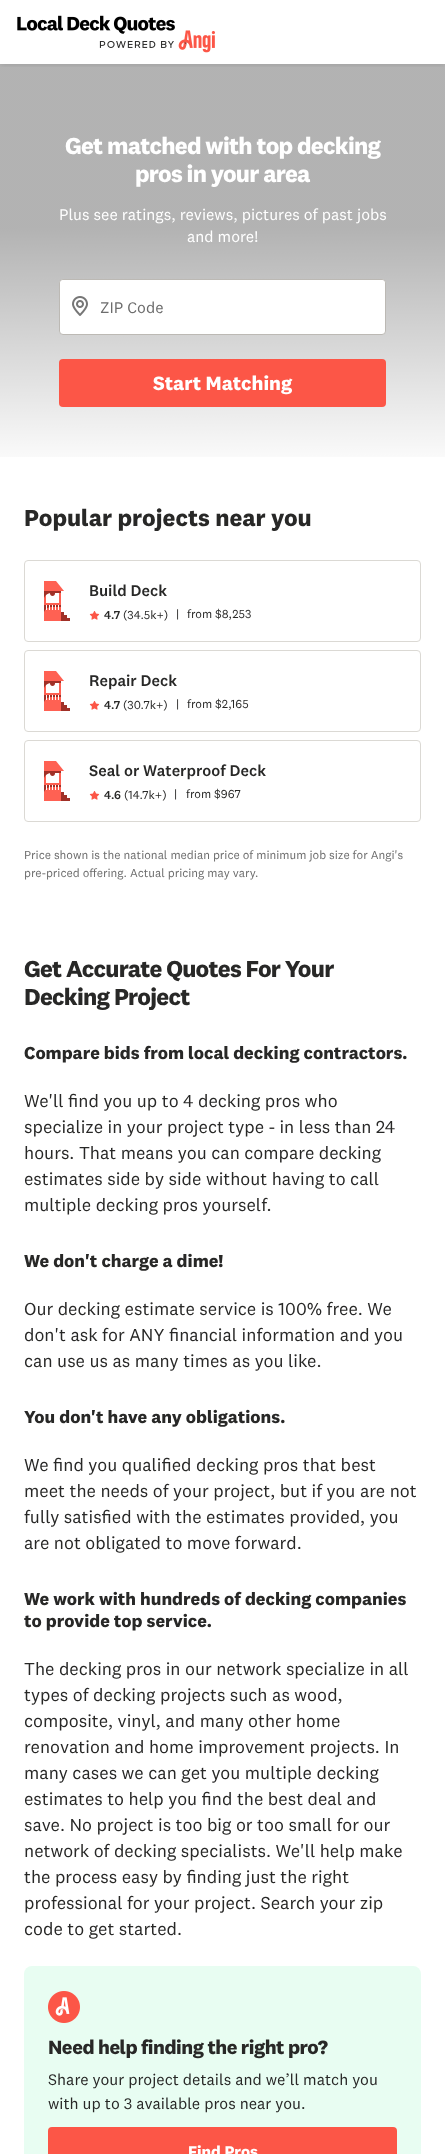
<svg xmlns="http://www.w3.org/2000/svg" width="445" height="2154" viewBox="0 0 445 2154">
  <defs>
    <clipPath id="clip1"><rect x="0" y="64" width="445" height="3"/></clipPath>
    <linearGradient id="g1" gradientUnits="userSpaceOnUse" x1="222" y1="64" x2="223" y2="474"><stop offset="0.4" stop-color="rgb(0,0,0)" stop-opacity="0.3"/><stop offset="1" stop-color="rgb(0,0,0)" stop-opacity="0"/></linearGradient>
  </defs>
  <rect width="100%" height="100%" fill="rgb(255,255,255)"/>
  <g clip-path="url(#clip1)">
    <rect x="1" y="4" width="443" height="62" fill="rgba(0,0,0,0.08)" filter="blur(2px)"/>
  </g>
  <image x="17" y="15" width="198" height="38" href="pic1.png"/>
  <rect x="0" y="64" width="445" height="393" fill="url(#g1)"/>
  <g font-family="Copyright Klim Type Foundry" font-size="24" font-weight="bold" letter-spacing="-0.75" fill="rgb(255,255,255)">
    <text x="65" y="154">Get matched with top decking</text>
    <text x="135" y="182">pros in your area</text>
  </g>
  <g font-family="Copyright Klim Type Foundry" font-size="16" fill="rgb(255,255,255)">
    <text x="59" y="220">Plus see ratings, reviews, pictures of past jobs</text>
    <text x="187" y="242">and more!</text>
  </g>
  <rect x="59.5" y="279.5" width="326" height="55" rx="3.5" fill="rgb(255,255,255)" stroke="rgb(188,185,180)"/>
  <rect x="60" y="280" width="325" height="53" rx="4" fill="rgb(255,255,255)"/>
  <image x="72" y="296" width="16" height="20" href="pic2.png"/>
  <text x="100" y="313" font-family="Copyright Klim Type Foundry" font-size="16" fill="rgb(109,109,109)">ZIP Code</text>
  <rect x="59" y="359" width="327" height="48" rx="4" fill="rgb(252,86,71)"/>
  <text x="153" y="390" font-family="Copyright Klim Type Foundry" font-size="20" font-weight="bold" fill="rgb(255,255,255)">Start Matching</text>
  <text x="24" y="526" font-family="Copyright Klim Type Foundry" font-size="24" font-weight="bold" fill="rgb(40,40,39)">Popular projects near you</text>
  <rect x="24.5" y="560.5" width="396" height="81" rx="3.5" fill="none" stroke="rgb(219,217,212)"/>
  <image x="44" y="581" width="26" height="40" href="pic3.png"/>
  <text x="89" y="596" font-family="'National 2'" font-size="16" font-weight="500" fill="rgb(40,40,39)">Build Deck</text>
  <image x="89" y="611" width="11" height="9" href="pic4.png"/>
  <text x="104" y="619" font-family="'National 2'" font-size="12" font-weight="500" fill="rgb(40,40,39)">4.7</text>
  <g font-family="Copyright Klim Type Foundry" font-size="12" fill="rgb(40,40,39)">
    <text x="123" y="619">(34.5k+)</text>
    <text x="176" y="618">|</text>
    <text x="187" y="618">from $8,253</text>
  </g>
  <rect x="24.5" y="650.5" width="396" height="81" rx="3.5" fill="none" stroke="rgb(219,217,212)"/>
  <image x="44" y="671" width="26" height="40" href="pic3.png"/>
  <text x="89" y="686" font-family="'National 2'" font-size="16" font-weight="500" fill="rgb(40,40,39)">Repair Deck</text>
  <image x="89" y="701" width="11" height="9" href="pic4.png"/>
  <text x="104" y="709" font-family="'National 2'" font-size="12" font-weight="500" fill="rgb(40,40,39)">4.7</text>
  <g font-family="Copyright Klim Type Foundry" font-size="12" fill="rgb(40,40,39)">
    <text x="123" y="709">(30.7k+)</text>
    <text x="176" y="708">|</text>
    <text x="187" y="708">from $2,165</text>
  </g>
  <rect x="24.5" y="740.5" width="396" height="81" rx="3.5" fill="none" stroke="rgb(219,217,212)"/>
  <image x="44" y="761" width="26" height="40" href="pic3.png"/>
  <text x="89" y="776" font-family="'National 2'" font-size="16" font-weight="500" fill="rgb(40,40,39)">Seal or Waterproof Deck</text>
  <image x="89" y="791" width="11" height="9" href="pic4.png"/>
  <text x="104" y="799" font-family="'National 2'" font-size="12" font-weight="500" fill="rgb(40,40,39)">4.6</text>
  <g font-family="Copyright Klim Type Foundry" font-size="12" fill="rgb(40,40,39)">
    <text x="124" y="799">(14.7k+)</text>
    <text x="174" y="798">|</text>
    <text x="186" y="798">from $967</text>
  </g>
  <g font-family="Copyright Klim Type Foundry" font-size="12" fill="rgb(109,109,109)">
    <text>
      <tspan x="24" y="859">Price shown is the national median price of minimum job size for Angi's</tspan>
      <tspan x="24" y="877">pre-priced offering. Actual pricing may vary.</tspan>
    </text>
  </g>
  <g font-family="Copyright Klim Type Foundry" font-size="24" font-weight="bold" letter-spacing="-0.75" fill="rgb(40,40,39)">
    <text>
      <tspan x="24" y="977">Get Accurate Quotes For Your</tspan>
      <tspan x="24" y="1005">Decking Project</tspan>
    </text>
  </g>
  <text x="24" y="1059" font-family="Copyright Klim Type Foundry" font-size="18" font-weight="bold" fill="rgb(40,40,39)">Compare bids from local decking contractors.</text>
  <g font-family="Copyright Klim Type Foundry" font-size="18" fill="rgb(40,40,39)">
    <text>
      <tspan x="24" y="1107">We'll find you up to 4 decking pros who</tspan>
      <tspan x="24" y="1133">specialize in your project type - in less than 24</tspan>
      <tspan x="24" y="1159">hours. That means you can compare decking</tspan>
      <tspan x="24" y="1185">estimates side by side without having to call</tspan>
      <tspan x="24" y="1211">multiple decking pros yourself.</tspan>
    </text>
  </g>
  <text x="24" y="1267" font-family="Copyright Klim Type Foundry" font-size="18" font-weight="bold" fill="rgb(40,40,39)">We don't charge a dime!</text>
  <g font-family="Copyright Klim Type Foundry" font-size="18" fill="rgb(40,40,39)">
    <text>
      <tspan x="24" y="1315">Our decking estimate service is 100% free. We</tspan>
      <tspan x="24" y="1341">don't ask for ANY financial information and you</tspan>
      <tspan x="24" y="1367">can use us as many times as you like.</tspan>
    </text>
  </g>
  <text x="24" y="1423" font-family="Copyright Klim Type Foundry" font-size="18" font-weight="bold" fill="rgb(40,40,39)">You don't have any obligations.</text>
  <g font-family="Copyright Klim Type Foundry" font-size="18" fill="rgb(40,40,39)">
    <text>
      <tspan x="24" y="1471">We find you qualified decking pros that best</tspan>
      <tspan x="24" y="1497">meet the needs of your project, but if you are not</tspan>
      <tspan x="24" y="1523">fully satisfied with the estimates provided, you</tspan>
      <tspan x="24" y="1549">are not obligated to move forward.</tspan>
    </text>
  </g>
  <g font-family="Copyright Klim Type Foundry" font-size="18" font-weight="bold" fill="rgb(40,40,39)">
    <text>
      <tspan x="24" y="1605">We work with hundreds of decking companies</tspan>
      <tspan x="24" y="1627">to provide top service.</tspan>
    </text>
  </g>
  <g font-family="Copyright Klim Type Foundry" font-size="18" fill="rgb(40,40,39)">
    <text>
      <tspan x="24" y="1675">The decking pros in our network specialize in all</tspan>
      <tspan x="24" y="1701">types of decking projects such as wood,</tspan>
      <tspan x="24" y="1727">composite, vinyl, and many other home</tspan>
      <tspan x="24" y="1753">renovation and home improvement projects. In</tspan>
      <tspan x="24" y="1779">many cases we can get you multiple decking</tspan>
      <tspan x="24" y="1805">estimates to help you find the best deal and</tspan>
      <tspan x="24" y="1831">save. No project is too big or too small for our</tspan>
      <tspan x="24" y="1857">network of decking specialists. We'll help make</tspan>
      <tspan x="24" y="1883">the process easy by finding just the right</tspan>
      <tspan x="24" y="1909">professional for your project. Search your zip</tspan>
      <tspan x="24" y="1935">code to get started.</tspan>
    </text>
  </g>
  <rect x="24" y="1966" width="397" height="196" rx="8" fill="rgb(232,253,242)"/>
  <image x="48" y="1991" width="32" height="32" href="pic5.png"/>
  <text x="48" y="2054" font-family="Copyright Klim Type Foundry" font-size="20" font-weight="bold" letter-spacing="-0.5" fill="rgb(40,40,39)">Need help finding the right pro?</text>
  <g font-family="Copyright Klim Type Foundry" font-size="16" fill="rgb(40,40,39)">
    <text>
      <tspan x="48" y="2085">Share your project details and we’ll match you</tspan>
      <tspan x="48" y="2109">with up to 3 available pros near you.</tspan>
    </text>
  </g>
  <rect x="48" y="2127" width="349" height="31" rx="4" fill="rgb(252,86,71)"/>
  <text x="188" y="2157" font-family="Copyright Klim Type Foundry" font-size="16" font-weight="bold" fill="rgb(255,255,255)">Find Pros</text>
</svg>
